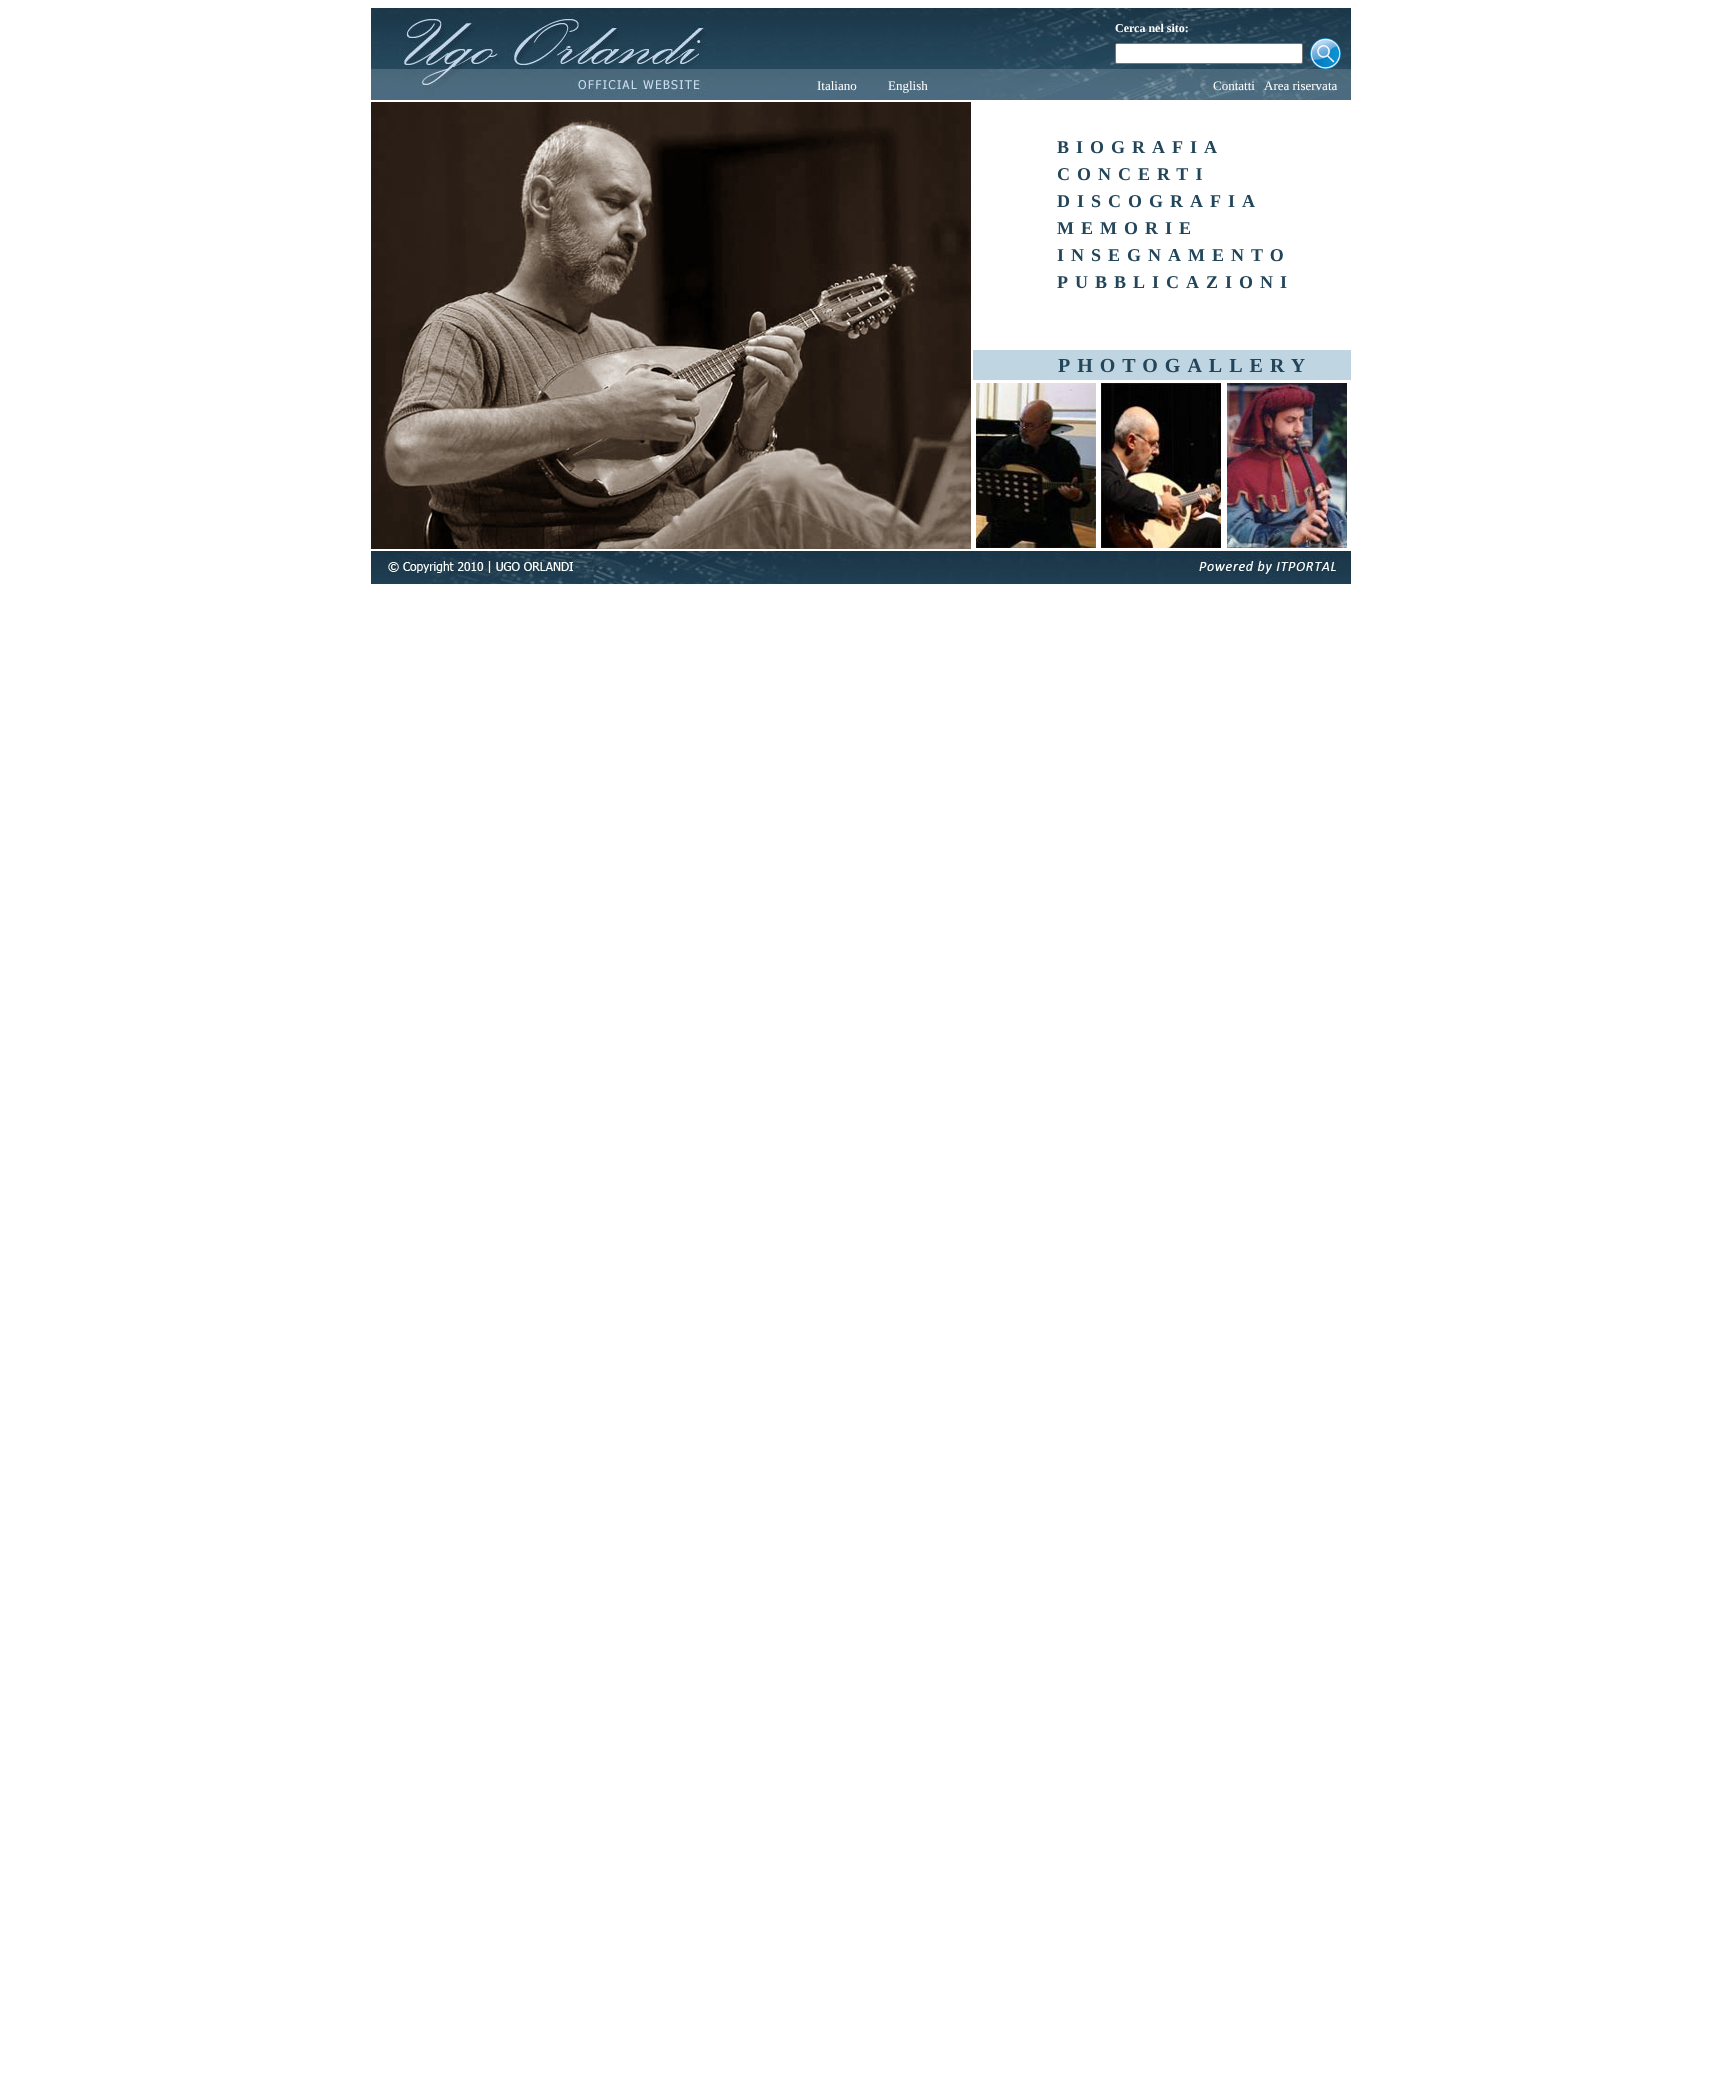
<svg xmlns="http://www.w3.org/2000/svg" width="1721" height="2092" viewBox="0 0 1721 2092">
  <rect width="100%" height="100%" fill="rgb(255,255,255)"/>
  <image x="371" y="8" width="980" height="92" href="pic1.png"/>
  <text x="1115" y="32" font-family="Liberation Serif" font-size="12" font-weight="bold" fill="rgb(255,255,255)">Cerca nel sito:</text>
  <rect x="1115.5" y="43.5" width="187" height="20" rx="1.5" fill="rgb(255,255,255)" stroke="rgb(118,118,118)"/>
  <image x="1310" y="38" width="31" height="32" href="pic2.png"/>
  <g font-family="Liberation Serif" font-size="13" fill="rgb(255,255,255)">
    <text x="817" y="90">Italiano</text>
    <text x="888" y="90">English</text>
    <text x="1213" y="90">Contatti</text>
    <text x="1264" y="90">Area riservata</text>
  </g>
  <image x="371" y="102" width="600" height="447" href="pic3.png"/>
  <g font-family="Liberation Serif" font-size="18" font-weight="bold" letter-spacing="7" fill="rgb(34,69,89)">
    <text>
      <tspan x="1057" y="153">BIOGRAFIA</tspan>
      <tspan x="1057" y="180">CONCERTI</tspan>
      <tspan x="1057" y="207">DISCOGRAFIA</tspan>
      <tspan x="1057" y="234">MEMORIE</tspan>
      <tspan x="1057" y="261">INSEGNAMENTO</tspan>
      <tspan x="1057" y="288">PUBBLICAZIONI</tspan>
    </text>
  </g>
  <rect x="973" y="350" width="378" height="30" fill="rgb(192,213,226)"/>
  <text x="1058" y="372" font-family="Liberation Serif" font-size="20" font-weight="bold" letter-spacing="7" fill="rgb(34,69,89)">PHOTOGALLERY</text>
  <image x="976" y="383" width="120" height="165" href="pic4.png"/>
  <image x="1101" y="383" width="120" height="165" href="pic5.png"/>
  <image x="1227" y="383" width="120" height="165" href="pic6.png"/>
  <image x="371" y="551" width="980" height="34" href="pic7.png"/>
</svg>
